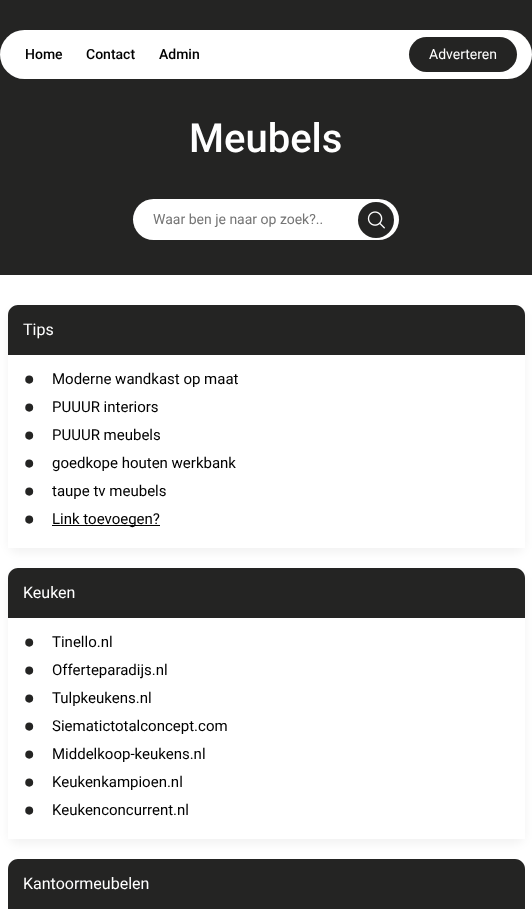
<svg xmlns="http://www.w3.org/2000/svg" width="532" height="911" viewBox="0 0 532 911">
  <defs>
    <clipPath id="clip1"><path d="M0 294H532V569H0ZM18 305H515C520.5 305 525 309.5 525 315V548H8V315C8 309.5 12.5 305 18 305Z" clip-rule="evenodd"/></clipPath>
    <clipPath id="clip2"><path d="M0 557H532V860H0ZM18 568H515C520.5 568 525 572.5 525 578V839H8V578C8 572.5 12.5 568 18 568Z" clip-rule="evenodd"/></clipPath>
  </defs>
  <rect width="100%" height="100%" fill="rgb(255,255,255)"/>
  <rect x="0" y="0" width="532" height="275" fill="rgb(36,36,35)"/>
  <rect x="0" y="30" width="532" height="49" rx="24.5" fill="rgb(255,255,255)"/>
  <g font-family="Roboto" font-size="14" font-weight="500" fill="rgb(0,0,0)">
    <text x="25" y="59">Home</text>
    <text x="86" y="59">Contact</text>
    <text x="159" y="59">Admin</text>
  </g>
  <rect x="409" y="37" width="108" height="35" rx="17.5" fill="rgb(36,36,35)"/>
  <text x="429" y="59" font-family="Roboto" font-size="14" fill="rgb(255,255,255)">Adverteren</text>
  <text x="189" y="152" font-family="Roboto" font-size="40" font-weight="500" fill="rgb(255,255,255)">Meubels</text>
  <rect x="133" y="199" width="266" height="41" rx="20.5" fill="rgb(255,255,255)"/>
  <text x="153" y="224" font-family="Roboto" font-size="14" fill="rgb(117,117,117)">Waar ben je naar op zoek?..</text>
  <circle cx="376" cy="220" r="18" fill="rgb(36,36,35)"/>
  <image x="367" y="211" width="18" height="18" href="pic1.png"/>
  <g clip-path="url(#clip1)">
    <rect x="8" y="310" width="517" height="243" rx="10" fill="rgba(0,0,0,0.05)" filter="blur(5px)"/>
  </g>
  <path d="M18 305H515C520.5 305 525 309.5 525 315V355H8V315C8 309.5 12.5 305 18 305Z" fill="rgb(36,36,35)"/>
  <text x="23" y="335" font-family="Roboto" font-size="16" fill="rgb(255,255,255)">Tips</text>
  <text x="23" y="392" font-family="Roboto" font-size="34" font-weight="bold" fill="rgb(36,36,35)">•</text>
  <text x="52" y="384" font-family="Roboto" font-size="15" fill="rgb(0,0,0)">Moderne wandkast op maat</text>
  <text x="23" y="420" font-family="Roboto" font-size="34" font-weight="bold" fill="rgb(36,36,35)">•</text>
  <text x="52" y="412" font-family="Roboto" font-size="15" fill="rgb(0,0,0)">PUUUR interiors</text>
  <text x="23" y="448" font-family="Roboto" font-size="34" font-weight="bold" fill="rgb(36,36,35)">•</text>
  <text x="52" y="440" font-family="Roboto" font-size="15" fill="rgb(0,0,0)">PUUUR meubels</text>
  <text x="23" y="476" font-family="Roboto" font-size="34" font-weight="bold" fill="rgb(36,36,35)">•</text>
  <text x="52" y="468" font-family="Roboto" font-size="15" fill="rgb(0,0,0)">goedkope houten werkbank</text>
  <text x="23" y="504" font-family="Roboto" font-size="34" font-weight="bold" fill="rgb(36,36,35)">•</text>
  <text x="52" y="496" font-family="Roboto" font-size="15" fill="rgb(0,0,0)">taupe tv meubels</text>
  <text x="23" y="532" font-family="Roboto" font-size="34" font-weight="bold" fill="rgb(36,36,35)">•</text>
  <rect x="52" y="525" width="108" height="1" fill="rgb(0,0,0)"/>
  <text x="52" y="524" font-family="Roboto" font-size="15" fill="rgb(0,0,0)">Link toevoegen?</text>
  <g clip-path="url(#clip2)">
    <rect x="8" y="573" width="517" height="271" rx="10" fill="rgba(0,0,0,0.05)" filter="blur(5px)"/>
  </g>
  <path d="M18 568H515C520.5 568 525 572.5 525 578V618H8V578C8 572.5 12.5 568 18 568Z" fill="rgb(36,36,35)"/>
  <text x="23" y="598" font-family="Roboto" font-size="16" fill="rgb(255,255,255)">Keuken</text>
  <text x="23" y="655" font-family="Roboto" font-size="34" font-weight="bold" fill="rgb(36,36,35)">•</text>
  <text x="52" y="647" font-family="Roboto" font-size="15" fill="rgb(0,0,0)">Tinello.nl</text>
  <text x="23" y="683" font-family="Roboto" font-size="34" font-weight="bold" fill="rgb(36,36,35)">•</text>
  <text x="52" y="675" font-family="Roboto" font-size="15" fill="rgb(0,0,0)">Offerteparadijs.nl</text>
  <text x="23" y="711" font-family="Roboto" font-size="34" font-weight="bold" fill="rgb(36,36,35)">•</text>
  <text x="52" y="703" font-family="Roboto" font-size="15" fill="rgb(0,0,0)">Tulpkeukens.nl</text>
  <text x="23" y="739" font-family="Roboto" font-size="34" font-weight="bold" fill="rgb(36,36,35)">•</text>
  <text x="52" y="731" font-family="Roboto" font-size="15" fill="rgb(0,0,0)">Siematictotalconcept.com</text>
  <text x="23" y="767" font-family="Roboto" font-size="34" font-weight="bold" fill="rgb(36,36,35)">•</text>
  <text x="52" y="759" font-family="Roboto" font-size="15" fill="rgb(0,0,0)">Middelkoop-keukens.nl</text>
  <text x="23" y="795" font-family="Roboto" font-size="34" font-weight="bold" fill="rgb(36,36,35)">•</text>
  <text x="52" y="787" font-family="Roboto" font-size="15" fill="rgb(0,0,0)">Keukenkampioen.nl</text>
  <text x="23" y="823" font-family="Roboto" font-size="34" font-weight="bold" fill="rgb(36,36,35)">•</text>
  <text x="52" y="815" font-family="Roboto" font-size="15" fill="rgb(0,0,0)">Keukenconcurrent.nl</text>
  <path d="M18 859H515C520.5 859 525 863.5 525 869V909H8V869C8 863.5 12.5 859 18 859Z" fill="rgb(36,36,35)"/>
  <text x="23" y="889" font-family="Roboto" font-size="16" fill="rgb(255,255,255)">Kantoormeubelen</text>
</svg>
